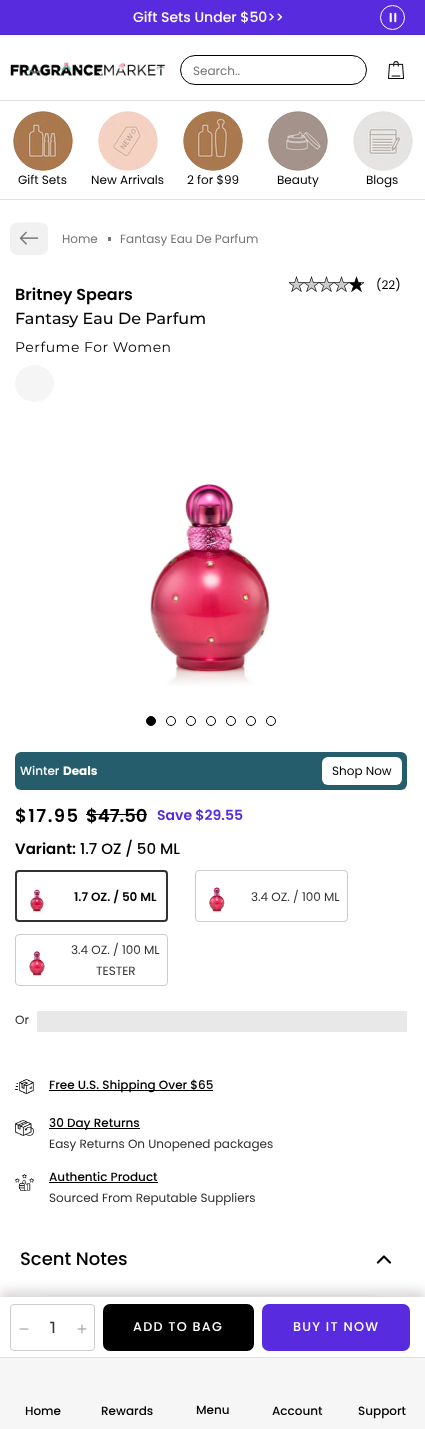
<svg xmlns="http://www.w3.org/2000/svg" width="425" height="1429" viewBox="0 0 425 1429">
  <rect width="100%" height="100%" fill="rgb(255,255,255)"/>
  <rect x="0" y="0" width="425" height="34" fill="rgb(88,43,222)"/>
  <rect x="0" y="34" width="425" height="1" fill="rgb(82,41,206)"/>
  <text x="133" y="22" font-family="Poppins" font-size="14" font-weight="500" fill="rgb(255,255,255)">Gift Sets Under $50&gt;&gt;</text>
  <circle cx="392.5" cy="17.5" r="12" fill="none" stroke="rgb(255,255,255)"/>
  <image x="389" y="12" width="8" height="11" href="pic1.png"/>
  <image x="10" y="62" width="155" height="15" href="pic2.png"/>
  <rect x="180.5" y="55.5" width="186" height="29" rx="14.5" fill="none" stroke="rgb(0,0,0)"/>
  <text x="193" y="75" font-family="Poppins" font-size="12" fill="rgb(117,117,117)">Search..</text>
  <image x="388" y="61" width="16" height="18" href="pic3.png"/>
  <rect x="30.5" y="1295.5" width="361" height="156" rx="21.5" fill="none" stroke="rgb(232,232,232)"/>
  <rect x="0" y="1291" width="425" height="60" fill="rgb(217,213,212)" filter="blur(6px)"/>
  <rect x="0" y="1358" width="425" height="71" fill="rgb(246,246,246)"/>
  <rect x="0" y="1357" width="425" height="1" fill="rgb(225,225,227)"/>
  <g font-family="Poppins" font-size="12" font-weight="500" fill="rgb(0,0,0)">
    <text x="25" y="1415">Home</text>
    <text x="101" y="1415">Rewards</text>
    <text x="196" y="1414">Menu</text>
    <text x="272" y="1415">Account</text>
    <text x="358" y="1415">Support</text>
  </g>
  <rect x="0" y="100" width="425" height="1" fill="rgb(225,225,227)"/>
  <rect x="0" y="199" width="425" height="1" fill="rgb(225,225,227)"/>
  <image x="13" y="111" width="60" height="60" href="pic4.png"/>
  <text x="18" y="184" font-family="Poppins" font-size="12" fill="rgb(0,0,0)">Gift Sets</text>
  <image x="98" y="111" width="60" height="60" href="pic5.png"/>
  <text x="91" y="184" font-family="Poppins" font-size="12" fill="rgb(0,0,0)">New Arrivals</text>
  <image x="183" y="111" width="60" height="60" href="pic6.png"/>
  <text x="187" y="184" font-family="Poppins" font-size="12" fill="rgb(0,0,0)">2 for $99</text>
  <image x="268" y="111" width="60" height="60" href="pic7.png"/>
  <text x="277" y="184" font-family="Poppins" font-size="12" fill="rgb(0,0,0)">Beauty</text>
  <image x="353" y="111" width="60" height="60" href="pic8.png"/>
  <text x="366" y="184" font-family="Poppins" font-size="12" fill="rgb(0,0,0)">Blogs</text>
  <path d="M40.5 255H17.5C13.5 255 10 252 10 248.5V229C10 225.5 13.5 222.5 17.5 222.5H40.5C44.5 222.5 48 225.5 48 229V248.5C48 252 44.5 255 40.5 255Z" fill="rgb(242,241,241)"/>
  <image x="19" y="231" width="20" height="14" href="pic9.png"/>
  <text x="62" y="243" font-family="Poppins" font-size="12" fill="rgb(117,117,117)">Home</text>
  <rect x="108" y="237" width="3" height="4" fill="rgb(117,117,117)"/>
  <text x="120" y="243" font-family="Poppins" font-size="12" fill="rgb(117,117,117)">Fantasy Eau De Parfum</text>
  <image x="289" y="276" width="15" height="16" href="pic10.png"/>
  <image x="304" y="276" width="15" height="16" href="pic10.png"/>
  <image x="319" y="276" width="15" height="16" href="pic10.png"/>
  <image x="334" y="276" width="15" height="16" href="pic10.png"/>
  <image x="349" y="276" width="15" height="16" href="pic11.png"/>
  <text x="376" y="289" font-family="Poppins" font-size="12" fill="rgb(0,0,0)">(22)</text>
  <text x="15" y="300" font-family="Poppins" font-size="16" font-weight="600" fill="rgb(0,0,0)">Britney Spears</text>
  <text x="15" y="324" font-family="Montserrat" font-size="16" font-weight="500" fill="rgb(0,0,0)">Fantasy Eau De Parfum</text>
  <text x="15" y="352" font-family="Montserrat" font-size="14" letter-spacing="0.5" fill="rgb(0,0,0)">Perfume For Women</text>
  <ellipse cx="34.5" cy="383.5" rx="19.5" ry="18.5" fill="rgb(245,245,245)"/>
  <image x="150" y="483" width="120" height="203" href="pic12.png"/>
  <circle cx="151" cy="721" r="4.5" fill="rgb(0,0,0)" stroke="rgb(0,0,0)"/>
  <circle cx="171" cy="721" r="4.5" fill="none" stroke="rgb(0,0,0)"/>
  <circle cx="191" cy="721" r="4.5" fill="none" stroke="rgb(0,0,0)"/>
  <circle cx="211" cy="721" r="4.5" fill="none" stroke="rgb(0,0,0)"/>
  <circle cx="231" cy="721" r="4.5" fill="none" stroke="rgb(0,0,0)"/>
  <circle cx="251" cy="721" r="4.5" fill="none" stroke="rgb(0,0,0)"/>
  <circle cx="271" cy="721" r="4.5" fill="none" stroke="rgb(0,0,0)"/>
  <rect x="15" y="752" width="392" height="38" rx="6" fill="rgb(38,93,109)"/>
  <text x="20" y="775" font-family="Poppins" font-size="12" font-weight="500" fill="rgb(255,255,255)">Winter</text>
  <text x="63" y="775" font-family="Poppins" font-size="12" font-weight="bold" fill="rgb(255,255,255)">Deals</text>
  <rect x="322" y="757" width="80" height="28" rx="6" fill="rgb(255,255,255)"/>
  <text x="332" y="775" font-family="Poppins" font-size="12" fill="rgb(0,0,0)">Shop Now</text>
  <text x="15" y="822" font-family="Poppins" font-size="18" font-weight="600" letter-spacing="1.5" fill="rgb(0,0,0)">$17.95</text>
  <text x="86" y="822" font-family="Poppins" font-size="18" font-weight="600" fill="rgb(0,0,0)">$47.50</text>
  <rect x="86" y="814" width="61" height="1" fill="rgb(0,0,0)"/>
  <text x="157" y="820" font-family="Poppins" font-size="14" font-weight="600" fill="rgb(88,43,222)">Save $29.55</text>
  <text x="15" y="854" font-family="Poppins" font-size="15" font-weight="600" fill="rgb(0,0,0)">Variant:</text>
  <text x="80" y="854" font-family="Poppins" font-size="15" font-weight="500" fill="rgb(0,0,0)">1.7 OZ / 50 ML</text>
  <rect x="16" y="871" width="151" height="50" rx="3" fill="none" stroke="rgb(51,51,51)" stroke-width="2"/>
  <image x="30" y="889" width="14" height="24" href="pic13.png"/>
  <text x="74" y="901" font-family="Poppins" font-size="12" font-weight="600" fill="rgb(0,0,0)">1.7 OZ. / 50 ML</text>
  <rect x="195.5" y="870.5" width="152" height="51" rx="3.5" fill="none" stroke="rgb(203,203,203)"/>
  <image x="209" y="887" width="16" height="26" href="pic14.png"/>
  <text x="251" y="901" font-family="Poppins" font-size="12" fill="rgb(51,51,51)">3.4 OZ. / 100 ML</text>
  <rect x="15.5" y="934.5" width="152" height="51" rx="3.5" fill="none" stroke="rgb(203,203,203)"/>
  <image x="29" y="951" width="16" height="26" href="pic15.png"/>
  <g font-family="Poppins" font-size="12" fill="rgb(51,51,51)">
    <text x="71" y="954">3.4 OZ. / 100 ML</text>
    <text x="96" y="975">TESTER</text>
  </g>
  <text x="15" y="1024" font-family="Poppins" font-size="12" fill="rgb(45,45,45)">Or</text>
  <rect x="37" y="1011" width="370" height="21" fill="rgb(232,232,232)"/>
  <image x="15" y="1079" width="19" height="15" href="pic16.png"/>
  <rect x="49" y="1090" width="164" height="1" fill="rgb(0,0,0)"/>
  <text x="49" y="1089" font-family="Poppins" font-size="12" font-weight="500" fill="rgb(0,0,0)">Free U.S. Shipping Over $65</text>
  <image x="15" y="1120" width="19" height="16" href="pic17.png"/>
  <rect x="49" y="1128" width="91" height="1" fill="rgb(0,0,0)"/>
  <text x="49" y="1127" font-family="Poppins" font-size="12" font-weight="500" fill="rgb(0,0,0)">30 Day Returns</text>
  <text x="49" y="1148" font-family="Poppins" font-size="12" fill="rgb(45,45,45)">Easy Returns On Unopened packages</text>
  <image x="15" y="1174" width="19" height="17" href="pic18.png"/>
  <text x="49" y="1181" font-family="Poppins" font-size="12" font-weight="500" fill="rgb(0,0,0)">Authentic Product</text>
  <rect x="49" y="1182" width="109" height="1" fill="rgb(0,0,0)"/>
  <text x="49" y="1202" font-family="Poppins" font-size="12" fill="rgb(45,45,45)">Sourced From Reputable Suppliers</text>
  <rect x="0" y="1297" width="425" height="60" fill="rgb(255,255,255)"/>
  <rect x="10.5" y="1304.5" width="84" height="46" rx="3.5" fill="none" stroke="rgb(203,203,203)"/>
  <image x="19" y="1328" width="10" height="2" href="pic19.png"/>
  <text x="50" y="1333" font-family="Montserrat" font-size="16" font-weight="500" letter-spacing="1" fill="rgb(51,51,51)">1</text>
  <image x="77" y="1324" width="10" height="10" href="pic20.png"/>
  <rect x="104" y="1305" width="149" height="45" rx="6" fill="rgb(0,0,0)" stroke="rgb(0,0,0)" stroke-width="2"/>
  <text x="133" y="1331" font-family="Poppins" font-size="12.75" font-weight="500" letter-spacing="1.25" fill="rgb(255,255,255)">ADD TO BAG</text>
  <rect x="262" y="1304" width="148" height="47" rx="7" fill="rgb(88,43,222)"/>
  <text x="293" y="1331" font-family="Poppins" font-size="12.75" font-weight="500" letter-spacing="1.25" fill="rgb(255,255,255)">BUY IT NOW</text>
  <text x="20" y="1265" font-family="Poppins" font-size="18" font-weight="500" fill="rgb(0,0,0)">Scent Notes</text>
  <image x="376" y="1255" width="15" height="9" href="pic21.png"/>
</svg>
